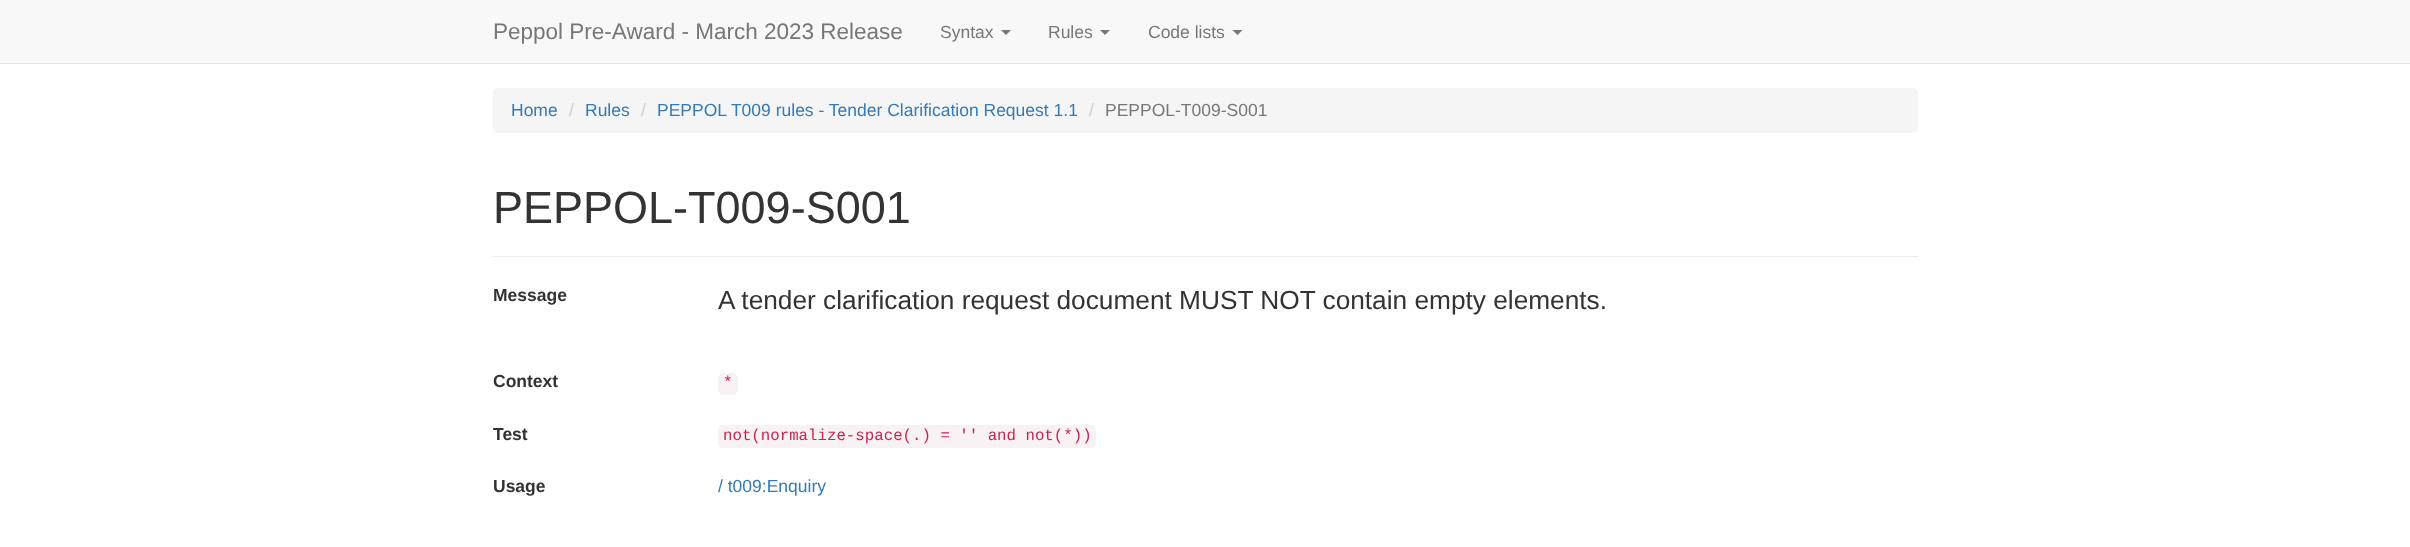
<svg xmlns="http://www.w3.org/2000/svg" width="2410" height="547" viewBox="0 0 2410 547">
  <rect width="100%" height="100%" fill="rgb(255,255,255)"/>
  <rect x="0" y="0" width="2410" height="63" fill="rgb(248,248,248)"/>
  <rect x="0" y="63" width="2410" height="1" fill="rgb(231,231,231)"/>
  <text x="493" y="39" font-family="Liberation Sans" font-size="22.5" fill="rgb(119,119,119)">Peppol Pre-Award - March 2023 Release</text>
  <text x="940" y="38" font-family="Liberation Sans" font-size="17.5" fill="rgb(119,119,119)">Syntax</text>
  <path d="M1001 30H1011L1006 35Z" fill="rgb(119,119,119)"/>
  <text x="1048" y="38" font-family="Liberation Sans" font-size="17.5" fill="rgb(119,119,119)">Rules</text>
  <path d="M1100 30H1110L1105 35Z" fill="rgb(119,119,119)"/>
  <text x="1148" y="38" font-family="Liberation Sans" font-size="17.5" fill="rgb(119,119,119)">Code lists</text>
  <path d="M1232.5 30H1242.5L1237.5 35Z" fill="rgb(119,119,119)"/>
  <rect x="493" y="88" width="1425" height="45" rx="5" fill="rgb(245,245,245)"/>
  <text x="511" y="116" font-family="Liberation Sans" font-size="17.5" fill="rgb(51,122,183)">Home</text>
  <text x="569" y="116" font-family="Liberation Sans" font-size="17.5" fill="rgb(204,204,204)">/</text>
  <text x="585" y="116" font-family="Liberation Sans" font-size="17.5" fill="rgb(51,122,183)">Rules</text>
  <text x="641" y="116" font-family="Liberation Sans" font-size="17.5" fill="rgb(204,204,204)">/</text>
  <text x="657" y="116" font-family="Liberation Sans" font-size="17.5" fill="rgb(51,122,183)">PEPPOL T009 rules - Tender Clarification Request 1.1</text>
  <text x="1089" y="116" font-family="Liberation Sans" font-size="17.5" fill="rgb(204,204,204)">/</text>
  <text x="1105" y="116" font-family="Liberation Sans" font-size="17.5" fill="rgb(119,119,119)">PEPPOL-T009-S001</text>
  <rect x="493" y="256" width="1425" height="1" fill="rgb(238,238,238)"/>
  <text x="493" y="223" font-family="Liberation Sans" font-size="45" fill="rgb(51,51,51)">PEPPOL-T009-S001</text>
  <text x="493" y="301" font-family="Liberation Sans" font-size="17.5" font-weight="bold" fill="rgb(51,51,51)">Message</text>
  <text x="718" y="309" font-family="Liberation Sans" font-size="26.25" fill="rgb(51,51,51)">A tender clarification request document MUST NOT contain empty elements.</text>
  <text x="493" y="387" font-family="Liberation Sans" font-size="17.5" font-weight="bold" fill="rgb(51,51,51)">Context</text>
  <rect x="718" y="373" width="20" height="22" rx="5" fill="rgb(249,242,244)"/>
  <text x="723" y="387" font-family="Liberation Mono" font-size="15.75" fill="rgb(199,37,78)">*</text>
  <text x="493" y="440" font-family="Liberation Sans" font-size="17.5" font-weight="bold" fill="rgb(51,51,51)">Test</text>
  <rect x="718" y="425" width="378" height="23" rx="5" fill="rgb(249,242,244)"/>
  <text x="723" y="440" font-family="Liberation Mono" font-size="15.75" fill="rgb(199,37,78)">not(normalize-space(.) = '' and not(*))</text>
  <text x="493" y="492" font-family="Liberation Sans" font-size="17.5" font-weight="bold" fill="rgb(51,51,51)">Usage</text>
  <text x="718" y="492" font-family="Liberation Sans" font-size="17.5" fill="rgb(51,122,183)">/ t009:Enquiry</text>
</svg>
